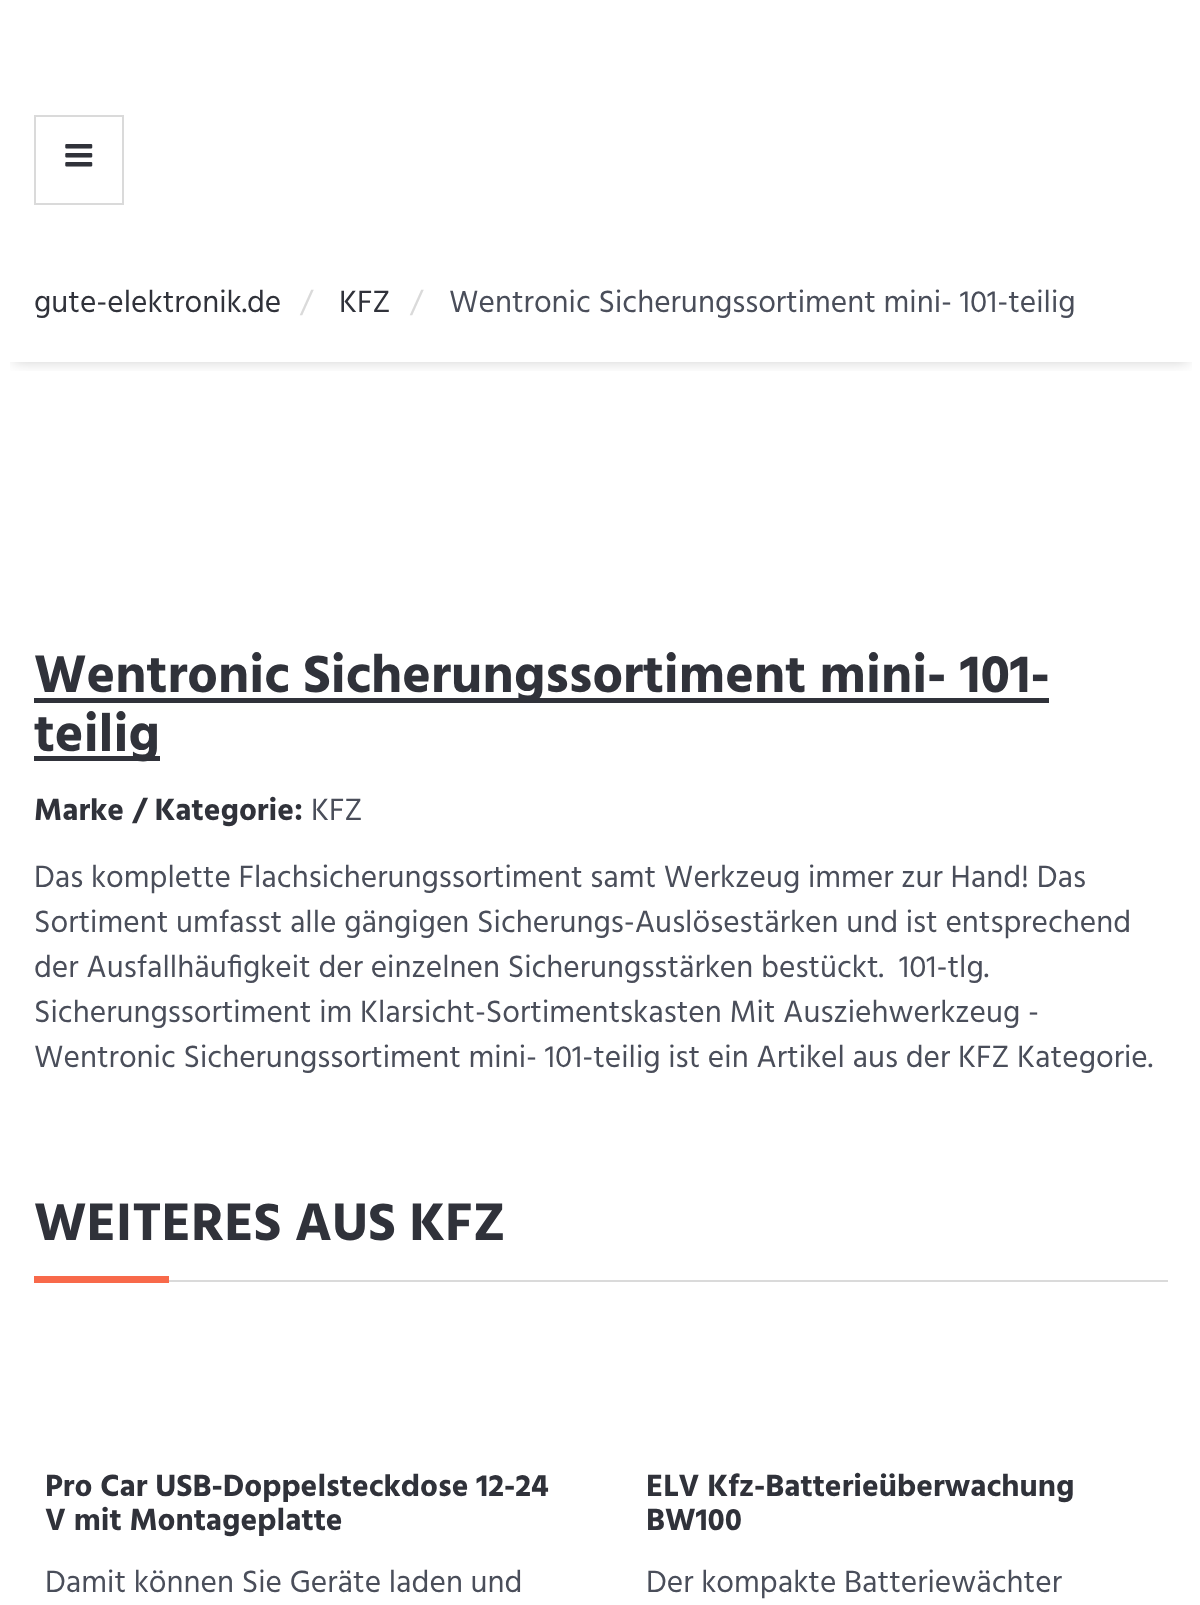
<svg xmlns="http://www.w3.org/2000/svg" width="1200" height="1605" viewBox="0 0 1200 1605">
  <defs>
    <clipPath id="clip1"><rect x="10" y="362" width="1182" height="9"/></clipPath>
  </defs>
  <rect width="100%" height="100%" fill="rgb(255,255,255)"/>
  <rect x="35" y="116" width="88" height="88" fill="none" stroke="rgb(218,218,218)" stroke-width="2"/>
  <image x="65" y="144" width="28" height="23" href="pic1.png"/>
  <g clip-path="url(#clip1)">
    <rect x="14" y="277" width="1174" height="85" fill="rgba(0,0,0,0.18)" filter="blur(7px)"/>
  </g>
  <text x="34" y="312" font-family="Hind" font-size="31.5" fill="rgb(48,50,58)">gute-elektronik.de</text>
  <text x="300" y="312" font-family="Hind" font-size="31.5" fill="rgb(218,218,218)">/</text>
  <text x="339" y="312" font-family="Hind" font-size="31.5" fill="rgb(48,50,58)">KFZ</text>
  <text x="410" y="312" font-family="Hind" font-size="31.5" fill="rgb(218,218,218)">/</text>
  <text x="449" y="312" font-family="Hind" font-size="31.5" fill="rgb(74,78,90)">Wentronic Sicherungssortiment mini- 101-teilig</text>
  <rect x="34" y="698" width="1015" height="5" fill="rgb(48,50,58)"/>
  <text x="34" y="692" font-family="Hind" font-size="54" font-weight="bold" fill="rgb(48,50,58)">Wentronic Sicherungssortiment mini- 101-</text>
  <rect x="34" y="756" width="126" height="5" fill="rgb(48,50,58)"/>
  <text x="34" y="751" font-family="Hind" font-size="54" font-weight="bold" fill="rgb(48,50,58)">teilig</text>
  <text x="34" y="820" font-family="Hind" font-size="31.5" font-weight="bold" fill="rgb(48,50,58)">Marke / Kategorie:</text>
  <g font-family="Hind" font-size="31.5" fill="rgb(74,78,90)">
    <text x="311" y="820">KFZ</text>
    <text>
      <tspan x="34" y="887">Das komplette Flachsicherungssortiment samt Werkzeug immer zur Hand! Das</tspan>
      <tspan x="34" y="932">Sortiment umfasst alle gängigen Sicherungs-Auslösestärken und ist entsprechend</tspan>
      <tspan x="34" y="977">der Ausfallhäufigkeit der einzelnen Sicherungsstärken bestückt.</tspan>
    </text>
    <text x="899" y="977">101-tlg.</text>
    <text>
      <tspan x="34" y="1022">Sicherungssortiment im Klarsicht-Sortimentskasten Mit Ausziehwerkzeug -</tspan>
      <tspan x="34" y="1067">Wentronic Sicherungssortiment mini- 101-teilig ist ein Artikel aus der KFZ Kategorie.</tspan>
    </text>
  </g>
  <rect x="169" y="1280" width="999" height="2" fill="rgb(218,218,218)"/>
  <text x="34" y="1240" font-family="Hind" font-size="54" font-weight="bold" fill="rgb(48,50,58)">WEITERES AUS KFZ</text>
  <rect x="34" y="1276" width="135" height="7" fill="rgb(248,105,74)"/>
  <g font-family="Hind" font-size="31.5" font-weight="bold" fill="rgb(48,50,58)">
    <text>
      <tspan x="45" y="1496">Pro Car USB-Doppelsteckdose 12-24</tspan>
      <tspan x="45" y="1530">V mit Montageplatte</tspan>
    </text>
  </g>
  <text x="45" y="1592" font-family="Hind" font-size="31.5" fill="rgb(74,78,90)">Damit können Sie Geräte laden und</text>
  <g font-family="Hind" font-size="31.5" font-weight="bold" fill="rgb(48,50,58)">
    <text>
      <tspan x="646" y="1496">ELV Kfz-Batterieüberwachung</tspan>
      <tspan x="646" y="1530">BW100</tspan>
    </text>
  </g>
  <text x="646" y="1592" font-family="Hind" font-size="31.5" fill="rgb(74,78,90)">Der kompakte Batteriewächter</text>
</svg>
